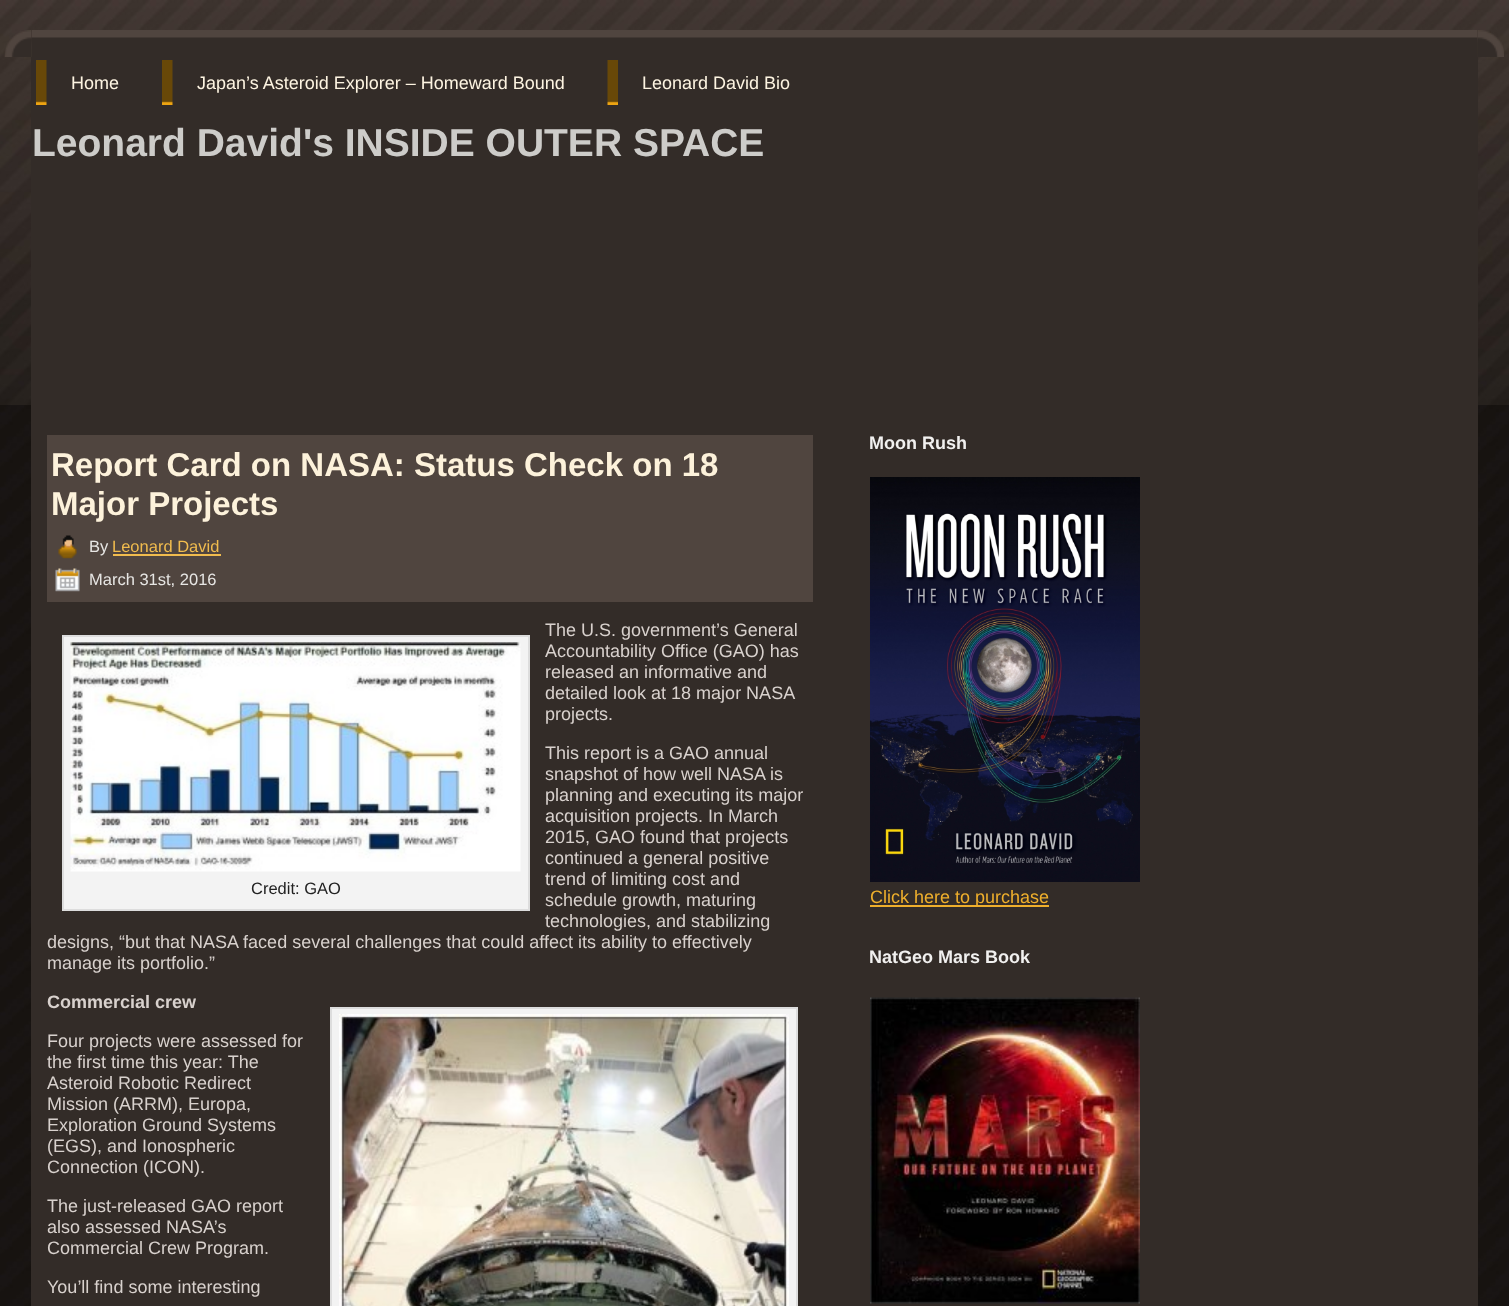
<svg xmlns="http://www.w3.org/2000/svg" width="1509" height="1306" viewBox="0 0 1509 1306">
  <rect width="100%" height="100%" fill="rgb(255,255,255)"/>
  <image x="0" y="405" width="1509" height="901" href="pic1.png"/>
  <image x="0" y="0" width="1509" height="405" href="pic2.png"/>
  <image x="4" y="30" width="28" height="27" href="pic3.png"/>
  <image x="32" y="30" width="1445" height="27" href="pic4.png"/>
  <image x="1477" y="30" width="27" height="27" href="pic5.png"/>
  <rect x="31" y="57" width="1447" height="1249" fill="rgb(51,44,40)"/>
  <image x="36" y="60" width="11" height="45" href="pic6.png"/>
  <text x="71" y="89" font-family="Liberation Sans" font-size="18" fill="rgb(253,244,225)">Home</text>
  <image x="162" y="60" width="11" height="45" href="pic6.png"/>
  <text x="197" y="89" font-family="Liberation Sans" font-size="18" fill="rgb(253,244,225)">Japan’s Asteroid Explorer – Homeward Bound</text>
  <image x="607" y="60" width="11" height="45" href="pic7.png"/>
  <text x="642" y="89" font-family="Liberation Sans" font-size="18" fill="rgb(253,244,225)">Leonard David Bio</text>
  <text x="32" y="156" font-family="Liberation Sans" font-size="39" font-weight="bold" fill="rgb(205,204,201)">Leonard David's INSIDE OUTER SPACE</text>
  <rect x="47" y="435" width="766" height="167" fill="rgb(80,69,63)"/>
  <g font-family="Liberation Sans" font-size="33" font-weight="bold" fill="rgb(253,242,219)">
    <text>
      <tspan x="51" y="476">Report Card on NASA: Status Check on 18</tspan>
      <tspan x="51" y="515">Major Projects</tspan>
    </text>
  </g>
  <image x="58" y="535" width="19" height="24" href="pic8.png"/>
  <text x="89" y="552" font-family="Liberation Sans" font-size="16.5" fill="rgb(231,230,228)">By</text>
  <text x="112" y="552" font-family="Liberation Sans" font-size="16.5" fill="rgb(241,188,78)">Leonard David</text>
  <rect x="113" y="554" width="108" height="2" fill="rgb(241,188,78)"/>
  <image x="55" y="568" width="25" height="24" href="pic9.png"/>
  <text x="89" y="585" font-family="Liberation Sans" font-size="16.5" fill="rgb(231,230,228)">March 31st, 2016</text>
  <g font-family="Liberation Sans" font-size="18" fill="rgb(216,209,205)">
    <text>
      <tspan x="545" y="636">The U.S. government’s General</tspan>
      <tspan x="545" y="657">Accountability Office (GAO) has</tspan>
      <tspan x="545" y="678">released an informative and</tspan>
      <tspan x="545" y="699">detailed look at 18 major NASA</tspan>
      <tspan x="545" y="720">projects.</tspan>
    </text>
    <text>
      <tspan x="545" y="759">This report is a GAO annual</tspan>
      <tspan x="545" y="780">snapshot of how well NASA is</tspan>
      <tspan x="545" y="801">planning and executing its major</tspan>
      <tspan x="545" y="822">acquisition projects. In March</tspan>
      <tspan x="545" y="843">2015, GAO found that projects</tspan>
      <tspan x="545" y="864">continued a general positive</tspan>
      <tspan x="545" y="885">trend of limiting cost and</tspan>
      <tspan x="545" y="906">schedule growth, maturing</tspan>
      <tspan x="545" y="927">technologies, and stabilizing</tspan>
    </text>
    <text>
      <tspan x="47" y="948">designs, “but that NASA faced several challenges that could affect its ability to effectively</tspan>
      <tspan x="47" y="969">manage its portfolio.”</tspan>
    </text>
  </g>
  <rect x="63" y="636" width="466" height="274" fill="rgb(243,243,243)" stroke="rgb(221,221,221)" stroke-width="2"/>
  <image x="70" y="642" width="451" height="230" href="pic10.png"/>
  <text x="251" y="894" font-family="Liberation Sans" font-size="16.5" fill="rgb(34,34,34)">Credit: GAO</text>
  <text x="47" y="1008" font-family="Liberation Sans" font-size="18" font-weight="bold" fill="rgb(216,209,205)">Commercial crew</text>
  <g font-family="Liberation Sans" font-size="18" fill="rgb(216,209,205)">
    <text>
      <tspan x="47" y="1047">Four projects were assessed for</tspan>
      <tspan x="47" y="1068">the first time this year: The</tspan>
      <tspan x="47" y="1089">Asteroid Robotic Redirect</tspan>
      <tspan x="47" y="1110">Mission (ARRM), Europa,</tspan>
      <tspan x="47" y="1131">Exploration Ground Systems</tspan>
      <tspan x="47" y="1152">(EGS), and Ionospheric</tspan>
      <tspan x="47" y="1173">Connection (ICON).</tspan>
    </text>
  </g>
  <rect x="331" y="1008" width="466" height="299" fill="rgb(243,243,243)" stroke="rgb(221,221,221)" stroke-width="2"/>
  <image x="339" y="1014" width="450" height="292" href="pic11.png"/>
  <g font-family="Liberation Sans" font-size="18" fill="rgb(216,209,205)">
    <text>
      <tspan x="47" y="1212">The just-released GAO report</tspan>
      <tspan x="47" y="1233">also assessed NASA’s</tspan>
      <tspan x="47" y="1254">Commercial Crew Program.</tspan>
    </text>
    <text x="47" y="1293">You’ll find some interesting</text>
  </g>
  <text x="869" y="449" font-family="Liberation Sans" font-size="18" font-weight="bold" fill="rgb(241,240,239)">Moon Rush</text>
  <image x="870" y="477" width="270" height="405" href="pic12.png"/>
  <rect x="870" y="905" width="179" height="2" fill="rgb(239,175,44)"/>
  <text x="870" y="903" font-family="Liberation Sans" font-size="18" fill="rgb(239,175,44)">Click here to purchase</text>
  <text x="869" y="963" font-family="Liberation Sans" font-size="18" font-weight="bold" fill="rgb(241,240,239)">NatGeo Mars Book</text>
  <image x="870" y="997" width="270" height="307" href="pic13.png"/>
</svg>
